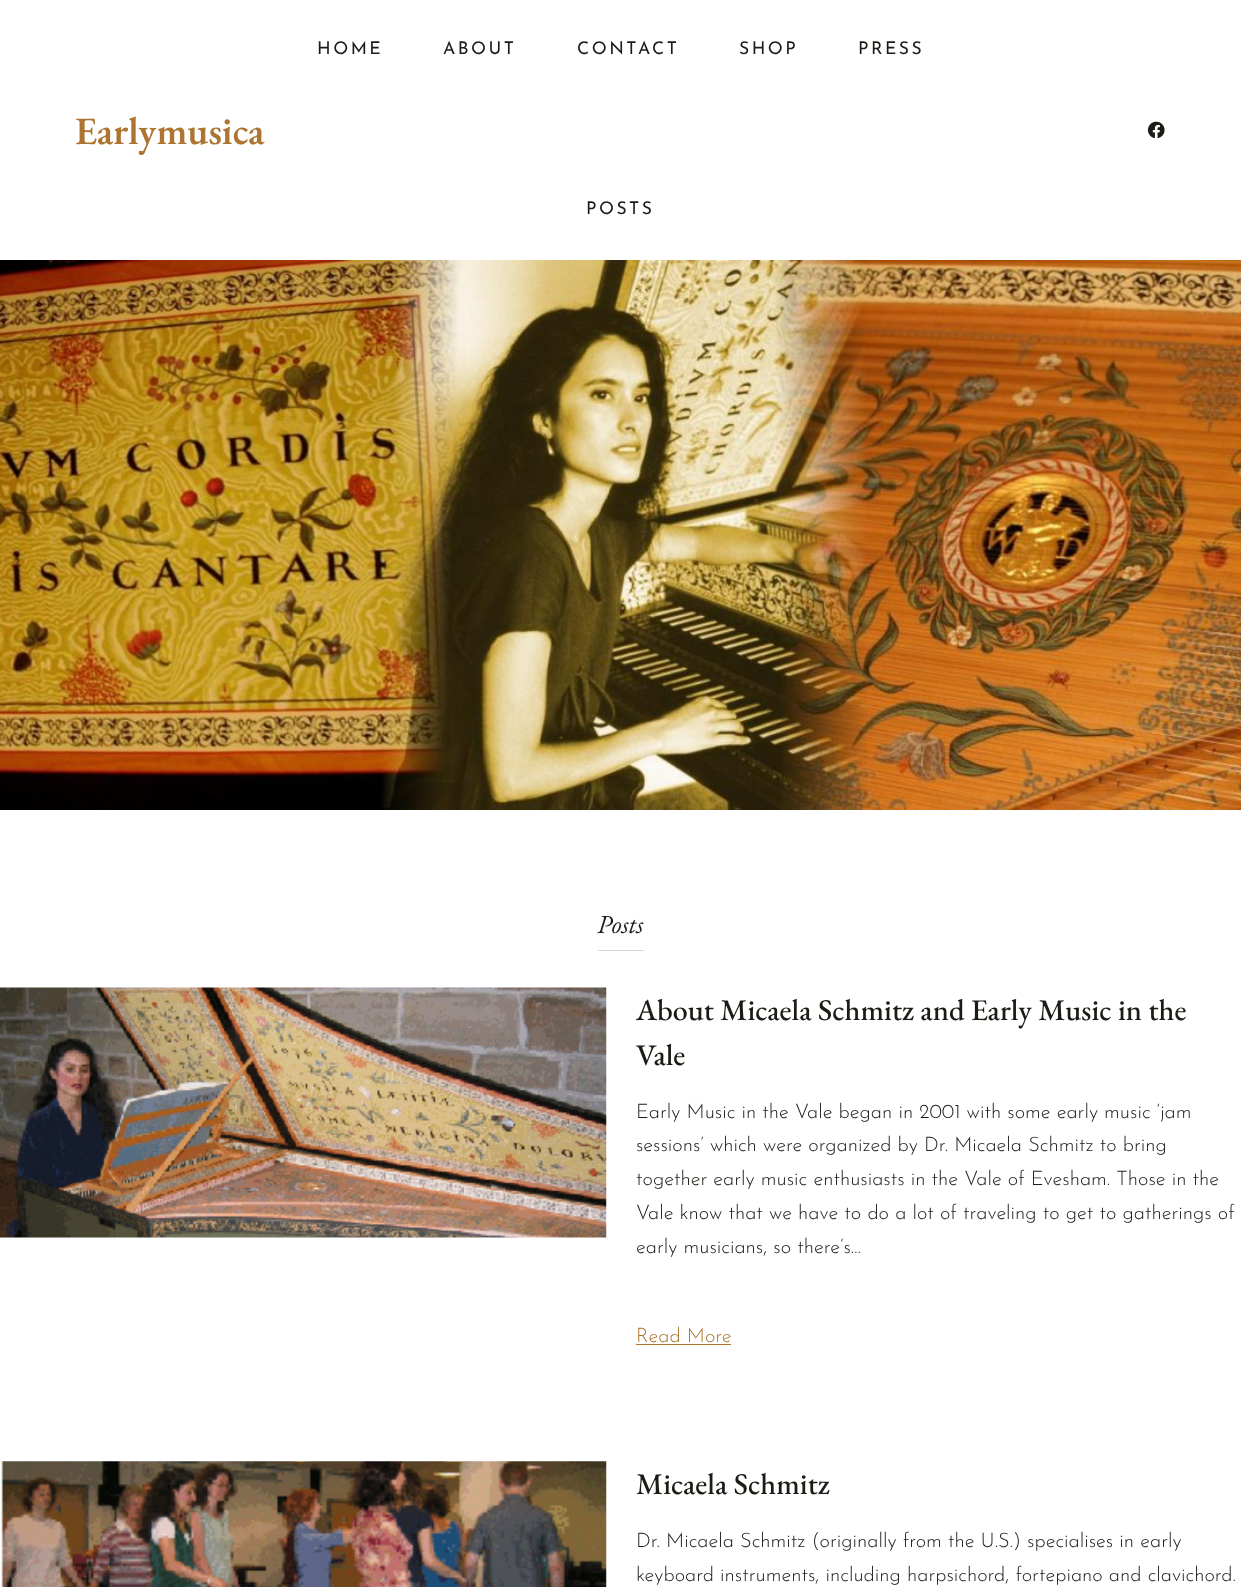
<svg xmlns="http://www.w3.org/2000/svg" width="1241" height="1587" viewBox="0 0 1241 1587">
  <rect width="100%" height="100%" fill="rgb(255,255,255)"/>
  <text x="75" y="144" font-family="EB Garamond" font-size="38.75" font-weight="600" fill="rgb(173,117,49)">Earlymusica</text>
  <g font-family="'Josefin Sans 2'" font-size="17.5" font-weight="100" letter-spacing="2.5" fill="rgb(29,27,21)">
    <text x="317" y="54">HOME</text>
    <text x="443" y="54">ABOUT</text>
    <text x="577" y="54">CONTACT</text>
    <text x="739" y="54">SHOP</text>
    <text x="858" y="54">PRESS</text>
    <text x="586" y="214">POSTS</text>
  </g>
  <image x="1147" y="121" width="18" height="18" href="pic1.png"/>
  <image x="0" y="260" width="1241" height="550" href="pic2.png"/>
  <text x="597" y="933" font-family="EB Garamond" font-size="26" font-style="italic" fill="rgb(29,27,21)">Posts</text>
  <rect x="598" y="950" width="46" height="1" fill="rgb(214,214,214)"/>
  <image x="0" y="987" width="607" height="251" href="pic3.png"/>
  <g font-family="EB Garamond" font-size="30" font-weight="500" fill="rgb(29,27,21)">
    <text>
      <tspan x="636" y="1020">About Micaela Schmitz and Early Music in the</tspan>
      <tspan x="636" y="1065">Vale</tspan>
    </text>
  </g>
  <g font-family="Josefin Sans" font-size="20" font-weight="100" fill="rgb(29,27,21)">
    <text>
      <tspan x="636" y="1118">Early Music in the Vale began in 2001 with some early music ‘jam</tspan>
      <tspan x="636" y="1151">sessions’ which were organized by Dr. Micaela Schmitz to bring</tspan>
      <tspan x="636" y="1185">together early music enthusiasts in the Vale of Evesham. Those in the</tspan>
      <tspan x="636" y="1219">Vale know that we have to do a lot of traveling to get to gatherings of</tspan>
      <tspan x="636" y="1253">early musicians, so there’s…</tspan>
    </text>
  </g>
  <text x="636" y="1342" font-family="Josefin Sans" font-size="20" font-weight="100" fill="rgb(173,117,49)">Read More</text>
  <rect x="636" y="1344" width="95" height="1" fill="rgb(173,117,49)"/>
  <image x="1" y="1461" width="606" height="126" href="pic4.png"/>
  <text x="636" y="1494" font-family="EB Garamond" font-size="30" font-weight="500" fill="rgb(29,27,21)">Micaela Schmitz</text>
  <g font-family="Josefin Sans" font-size="20" font-weight="100" fill="rgb(29,27,21)">
    <text>
      <tspan x="636" y="1547">Dr. Micaela Schmitz (originally from the U.S.) specialises in early</tspan>
      <tspan x="636" y="1581">keyboard instruments, including harpsichord, fortepiano and clavichord.</tspan>
    </text>
  </g>
</svg>
